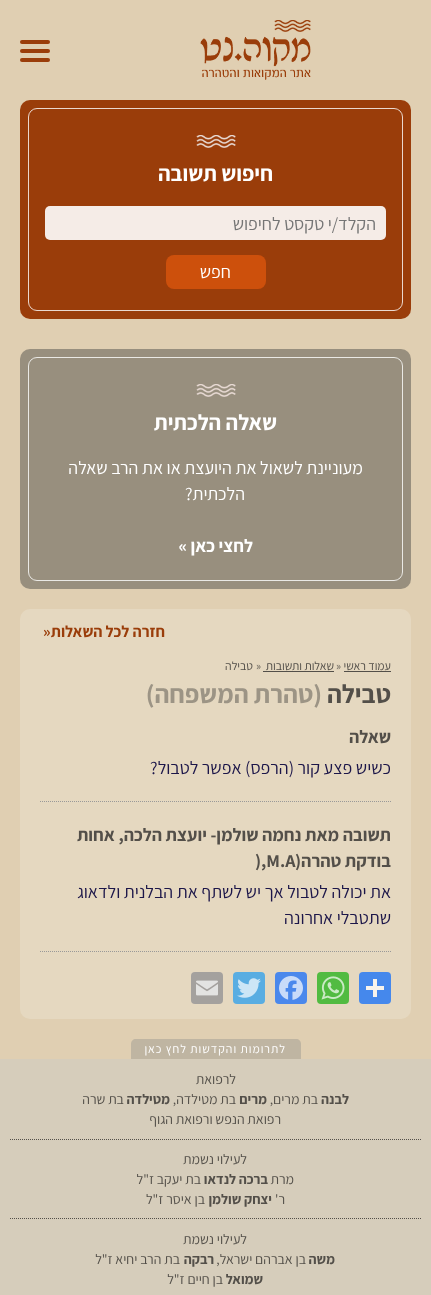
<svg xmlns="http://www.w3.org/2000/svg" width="431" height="1295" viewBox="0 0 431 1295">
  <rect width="100%" height="100%" fill="rgb(224,207,178)"/>
  <image x="200" y="20" width="111" height="60" href="pic1.png"/>
  <rect x="20" y="40" width="30" height="4" rx="2" fill="rgb(154,61,10)"/>
  <rect x="20" y="49" width="30" height="4" rx="2" fill="rgb(154,61,10)"/>
  <rect x="20" y="58" width="30" height="4" rx="2" fill="rgb(154,61,10)"/>
  <rect x="20" y="100" width="391" height="219" rx="10" fill="rgb(154,61,10)"/>
  <rect x="28.5" y="108.5" width="374" height="202" rx="8.5" fill="none" stroke="rgb(235,216,206)"/>
  <image x="196" y="135" width="40" height="13" href="pic2.png"/>
  <text x="273" y="181" font-family="Assistant" font-size="22" font-weight="bold" direction="rtl" fill="rgb(255,255,255)">חיפוש תשובה</text>
  <rect x="45" y="206" width="341" height="34" rx="5" fill="rgb(245,236,231)"/>
  <text x="376" y="230" font-family="Assistant" font-size="18" direction="rtl" fill="rgb(117,117,117)">הקלד/י טקסט לחיפוש</text>
  <rect x="166" y="255" width="100" height="34" rx="8" fill="rgb(205,80,12)"/>
  <text x="231" y="278" font-family="Assistant" font-size="18" direction="rtl" fill="rgb(255,255,255)">חפש</text>
  <rect x="20" y="349" width="391" height="240" rx="10" fill="rgb(152,143,126)"/>
  <rect x="28.5" y="357.5" width="374" height="223" rx="8.5" fill="none" stroke="rgb(234,233,229)"/>
  <image x="196" y="384" width="40" height="13" href="pic3.png"/>
  <text x="277" y="430" font-family="Assistant" font-size="22" font-weight="bold" direction="rtl" fill="rgb(255,255,255)">שאלה הלכתית</text>
  <g font-family="Assistant" font-size="18" direction="rtl" fill="rgb(255,255,255)">
    <text x="363" y="474">מעוניינת לשאול את היועצת או את הרב שאלה</text>
    <text x="245" y="500">הלכתית?</text>
  </g>
  <text x="253" y="552" font-family="Assistant" font-size="18" font-weight="bold" direction="rtl" fill="rgb(255,255,255)">לחצי כאן »</text>
  <rect x="20" y="609" width="391" height="410" rx="10" fill="rgb(229,216,192)"/>
  <text x="165" y="637" font-family="Assistant" font-size="16" font-weight="bold" direction="rtl" fill="rgb(154,61,10)">חזרה לכל השאלות</text>
  <text x="43" y="637" font-family="Assistant" font-size="16" font-weight="bold" fill="rgb(154,61,10)">»</text>
  <text x="391" y="670" font-family="Assistant" font-size="12" direction="rtl" fill="rgb(83,79,73)">עמוד ראשי</text>
  <rect x="344" y="671" width="47" height="1" fill="rgb(83,79,73)"/>
  <text x="336" y="670" font-family="Assistant" font-size="12" fill="rgb(83,79,73)">»</text>
  <rect x="263" y="671" width="71" height="1" fill="rgb(83,79,73)"/>
  <text x="334" y="670" font-family="Assistant" font-size="12" direction="rtl" fill="rgb(83,79,73)"> שאלות ותשובות</text>
  <text x="256" y="670" font-family="Assistant" font-size="12" fill="rgb(83,79,73)">»</text>
  <text x="253" y="670" font-family="Assistant" font-size="12" direction="rtl" fill="rgb(83,79,73)">טבילה</text>
  <text x="391" y="703" font-family="Assistant" font-size="26" font-weight="bold" direction="rtl" fill="rgb(83,79,73)">טבילה</text>
  <text x="322" y="703" font-family="Assistant" font-size="26" font-weight="bold" direction="rtl" fill="rgb(156,148,133)">(טהרת המשפחה)</text>
  <path d="M40 801.5H391" fill="none" stroke="rgb(153,153,153)" stroke-dasharray="1 1"/>
  <text x="391" y="743" font-family="Assistant" font-size="18" font-weight="bold" direction="rtl" fill="rgb(83,79,73)">שאלה</text>
  <text x="391" y="774" font-family="Assistant" font-size="18" direction="rtl" fill="rgb(28,22,73)">כשיש פצע קור (הרפס) אפשר לטבול?</text>
  <path d="M40 951.5H391" fill="none" stroke="rgb(153,153,153)" stroke-dasharray="1 1"/>
  <g font-family="Assistant" font-size="18" font-weight="bold" direction="rtl" fill="rgb(83,79,73)">
    <text>
      <tspan x="391" y="841">תשובה מאת נחמה שולמן- יועצת הלכה, אחות</tspan>
      <tspan x="391" y="867">בודקת טהרה(</tspan>
    </text>
  </g>
  <text x="255" y="867" font-family="Assistant" font-size="18" font-weight="bold" fill="rgb(83,79,73)">),M.A</text>
  <g font-family="Assistant" font-size="18" direction="rtl" fill="rgb(28,22,73)">
    <text>
      <tspan x="391" y="898">את יכולה לטבול אך יש לשתף את הבלנית ולדאוג</tspan>
      <tspan x="391" y="924">שתטבלי אחרונה</tspan>
    </text>
  </g>
  <rect x="359" y="972" width="32" height="32" rx="4" fill="rgb(69,136,236)"/>
  <rect x="373" y="979" width="4" height="18" fill="rgb(247,243,236)"/>
  <rect x="366" y="986" width="18" height="4" fill="rgb(247,243,236)"/>
  <rect x="317" y="972" width="32" height="32" rx="4" fill="rgb(81,187,65)"/>
  <image x="321" y="976" width="24" height="24" href="pic4.png"/>
  <rect x="275" y="972" width="32" height="32" rx="4" fill="rgb(74,136,236)"/>
  <image x="279" y="976" width="24" height="24" href="pic5.png"/>
  <rect x="233" y="972" width="32" height="32" rx="4" fill="rgb(89,173,226)"/>
  <image x="237" y="978" width="24" height="20" href="pic6.png"/>
  <rect x="191" y="972" width="32" height="32" rx="4" fill="rgb(164,161,158)"/>
  <image x="196" y="980" width="22" height="16" href="pic7.png"/>
  <rect x="0" y="1059" width="431" height="236" fill="rgb(214,205,187)"/>
  <path d="M136 1039H296C299 1039 301 1041 301 1044V1059H131V1044C131 1041 133 1039 136 1039Z" fill="rgb(191,181,162)"/>
  <text x="286" y="1053" font-family="Assistant" font-size="12" letter-spacing="1" direction="rtl" fill="rgb(255,255,255)">לתרומות והקדשות לחץ כאן</text>
  <text x="236" y="1084" font-family="Assistant" font-size="14" direction="rtl" fill="rgb(83,79,73)">לרפואת</text>
  <text x="349" y="1104" font-family="Assistant" font-size="14" font-weight="bold" direction="rtl" fill="rgb(83,79,73)">לבנה</text>
  <text x="318" y="1104" font-family="Assistant" font-size="14" direction="rtl" fill="rgb(83,79,73)">בת מרים,</text>
  <text x="267" y="1104" font-family="Assistant" font-size="14" font-weight="bold" direction="rtl" fill="rgb(83,79,73)">מרים</text>
  <text x="236" y="1104" font-family="Assistant" font-size="14" direction="rtl" fill="rgb(83,79,73)">בת מטילדה,</text>
  <text x="170" y="1104" font-family="Assistant" font-size="14" font-weight="bold" direction="rtl" fill="rgb(83,79,73)">מטילדה</text>
  <g font-family="Assistant" font-size="14" direction="rtl" fill="rgb(83,79,73)">
    <text x="124" y="1104">בת שרה</text>
    <text x="281" y="1124">רפואת הנפש ורפואת הגוף</text>
  </g>
  <path d="M10 1139.5H421" fill="none" stroke="rgb(83,79,73)" stroke-dasharray="1 1"/>
  <g font-family="Assistant" font-size="14" direction="rtl" fill="rgb(83,79,73)">
    <text x="247" y="1164">לעילוי נשמת</text>
    <text x="294" y="1184">מרת</text>
  </g>
  <text x="268" y="1184" font-family="Assistant" font-size="14" font-weight="bold" direction="rtl" fill="rgb(83,79,73)">ברכה לנדאו</text>
  <g font-family="Assistant" font-size="14" direction="rtl" fill="rgb(83,79,73)">
    <text x="201" y="1184">בת יעקב ז"ל</text>
    <text x="285" y="1204">ר'</text>
  </g>
  <text x="272" y="1204" font-family="Assistant" font-size="14" font-weight="bold" direction="rtl" fill="rgb(83,79,73)">יצחק שולמן</text>
  <text x="205" y="1204" font-family="Assistant" font-size="14" direction="rtl" fill="rgb(83,79,73)">בן איסר ז"ל</text>
  <path d="M10 1218.5H421" fill="none" stroke="rgb(83,79,73)" stroke-dasharray="1 1"/>
  <text x="247" y="1244" font-family="Assistant" font-size="14" direction="rtl" fill="rgb(83,79,73)">לעילוי נשמת</text>
  <text x="335" y="1264" font-family="Assistant" font-size="14" font-weight="bold" direction="rtl" fill="rgb(83,79,73)">משה</text>
  <text x="306" y="1264" font-family="Assistant" font-size="14" direction="rtl" fill="rgb(83,79,73)">בן אברהם ישראל,</text>
  <text x="214" y="1264" font-family="Assistant" font-size="14" font-weight="bold" direction="rtl" fill="rgb(83,79,73)">רבקה</text>
  <text x="180" y="1264" font-family="Assistant" font-size="14" direction="rtl" fill="rgb(83,79,73)">בת הרב יחיא ז"ל</text>
  <text x="263" y="1284" font-family="Assistant" font-size="14" font-weight="bold" direction="rtl" fill="rgb(83,79,73)">שמואל</text>
  <text x="223" y="1284" font-family="Assistant" font-size="14" direction="rtl" fill="rgb(83,79,73)">בן חיים ז"ל</text>
</svg>
